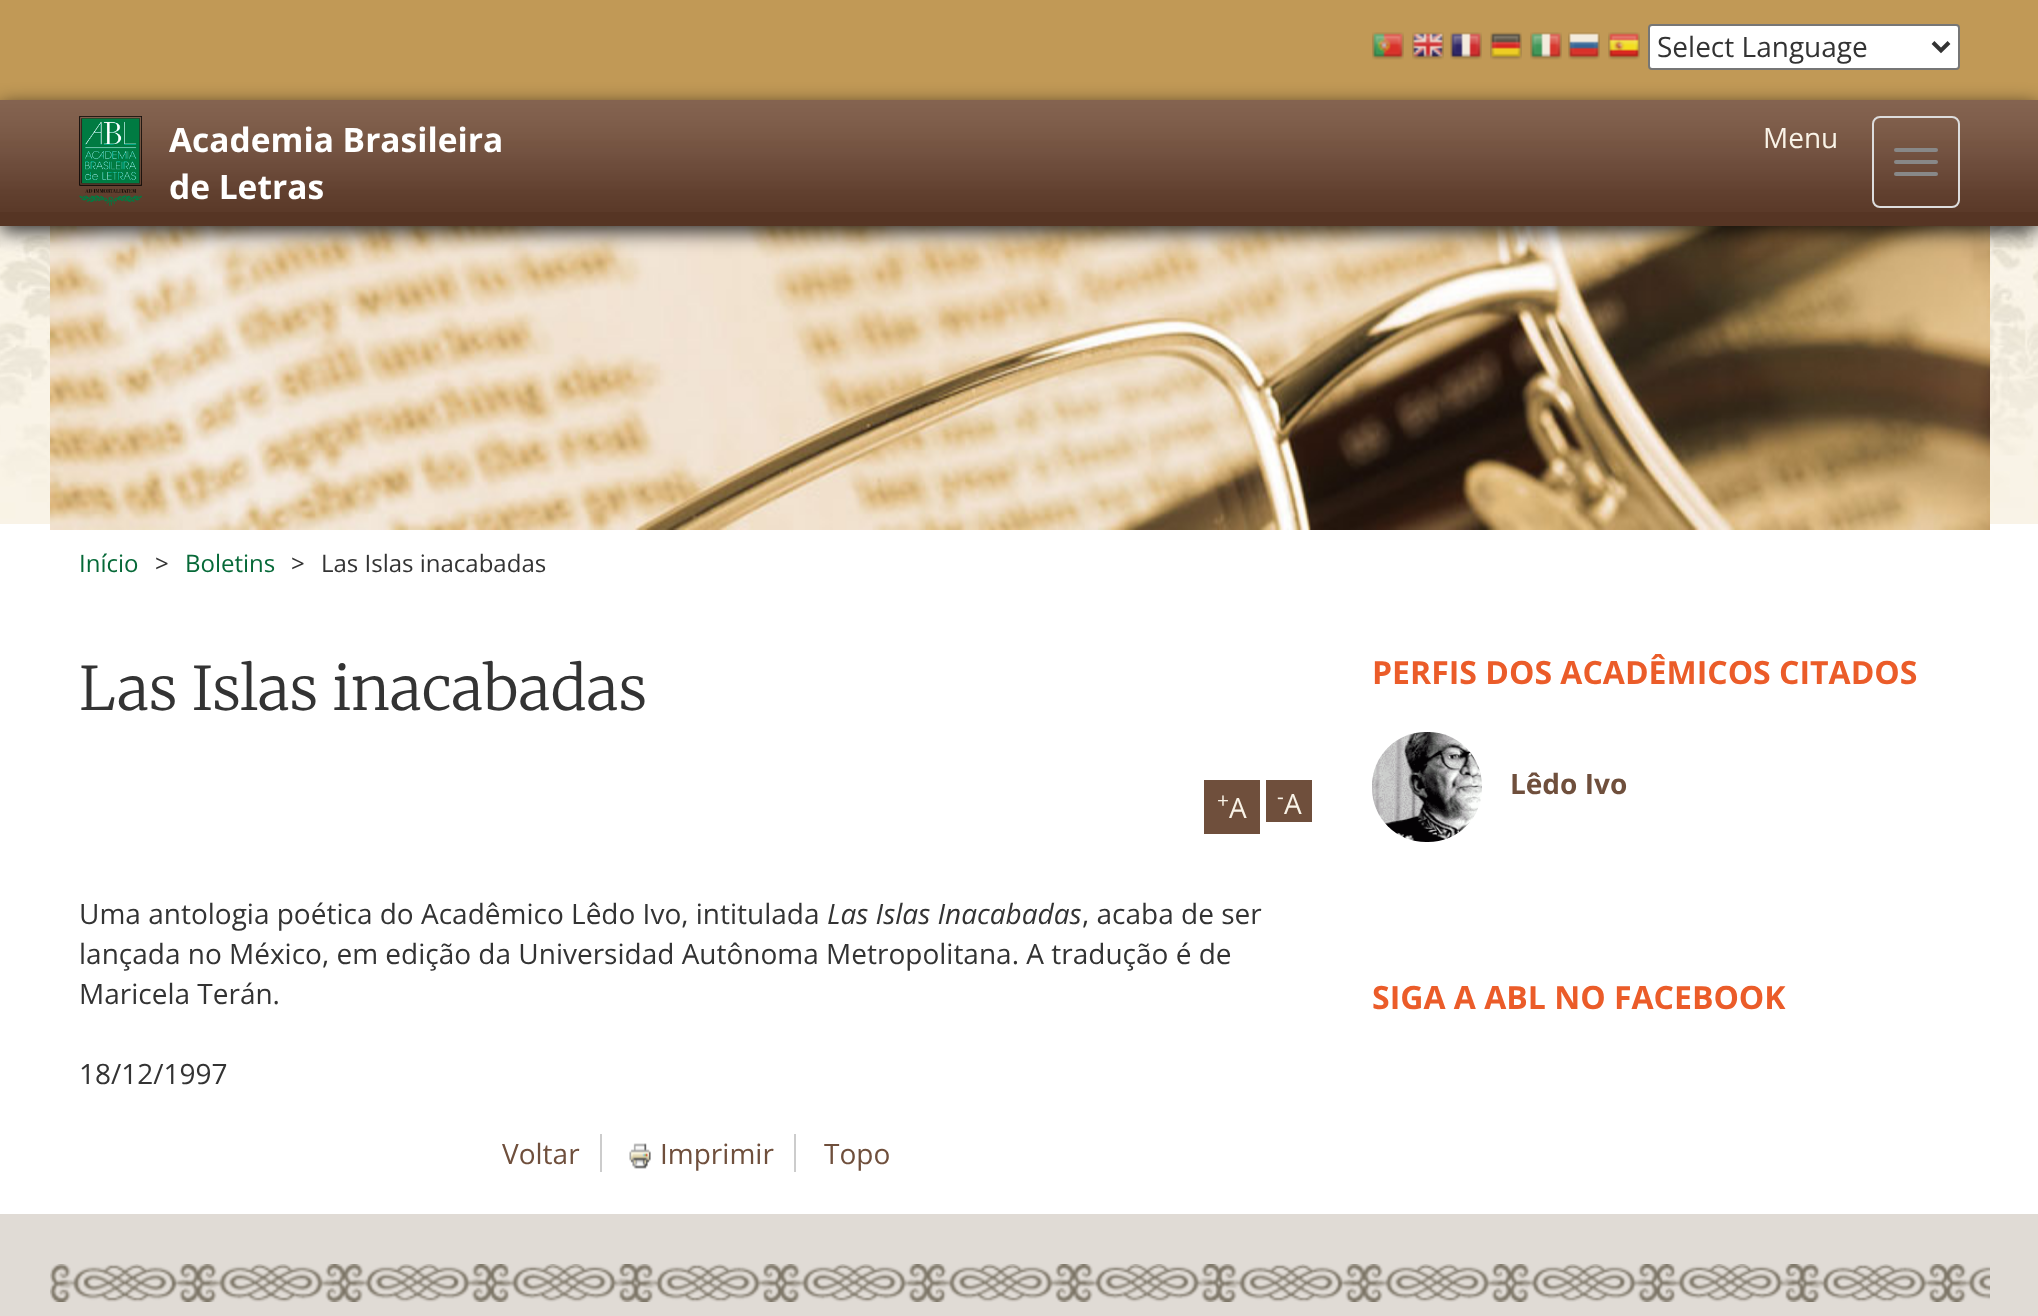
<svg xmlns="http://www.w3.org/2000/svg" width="2038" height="1316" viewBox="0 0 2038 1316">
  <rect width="100%" height="100%" fill="rgb(255,255,255)"/>
  <image x="0" y="226" width="2038" height="298" href="pic1.png"/>
  <rect x="0" y="0" width="2038" height="100" fill="rgb(193,153,86)"/>
  <image x="1372" y="32" width="32" height="28" href="pic2.png"/>
  <image x="1412" y="32" width="32" height="28" href="pic3.png"/>
  <image x="1450" y="32" width="32" height="28" href="pic4.png"/>
  <image x="1490" y="32" width="32" height="28" href="pic5.png"/>
  <image x="1530" y="32" width="32" height="28" href="pic6.png"/>
  <image x="1568" y="32" width="32" height="28" href="pic7.png"/>
  <image x="1608" y="32" width="32" height="28" href="pic8.png"/>
  <rect x="1649" y="25" width="310" height="44" rx="3" fill="rgb(255,255,255)" stroke="rgb(118,118,118)" stroke-width="2"/>
  <path d="M1933 42.5L1941 50.5L1949 42.5" fill="none" stroke="rgb(51,51,51)" stroke-width="4"/>
  <text x="1657" y="57" font-family="Open Sans" font-size="28" fill="rgb(51,51,51)">Select Language</text>
  <image x="50" y="226" width="1940" height="304" href="pic11.png"/>
  <rect x="0" y="106" width="2038" height="126" fill="rgba(0,0,0,0.8)" filter="blur(10px)"/>
  <rect x="0" y="212" width="2038" height="14" fill="rgb(86,53,36)"/>
  <image x="0" y="100" width="2038" height="112" href="pic9.png"/>
  <image x="79" y="116" width="63" height="90" href="pic10.png"/>
  <g font-family="Open Sans" font-size="33.5" font-weight="bold" fill="rgb(255,255,255)">
    <text>
      <tspan x="169" y="152">Academia Brasileira</tspan>
      <tspan x="169" y="199">de Letras</tspan>
    </text>
  </g>
  <rect x="1873" y="117" width="86" height="90" rx="7" fill="none" stroke="rgb(221,221,221)" stroke-width="2"/>
  <text x="1763" y="148" font-family="Open Sans" font-size="28" fill="rgb(249,243,231)">Menu</text>
  <rect x="1894" y="148" width="44" height="4" rx="2" fill="rgb(136,136,136)"/>
  <rect x="1894" y="160" width="44" height="4" rx="2" fill="rgb(136,136,136)"/>
  <rect x="1894" y="172" width="44" height="4" rx="2" fill="rgb(136,136,136)"/>
  <text x="79" y="572" font-family="Open Sans" font-size="24" fill="rgb(6,105,56)">Início</text>
  <text x="155" y="572" font-family="Open Sans" font-size="24" fill="rgb(51,51,51)">&gt;</text>
  <text x="185" y="572" font-family="Open Sans" font-size="24" fill="rgb(6,105,56)">Boletins</text>
  <g font-family="Open Sans" font-size="24" fill="rgb(51,51,51)">
    <text x="291" y="572">&gt;</text>
    <text x="321" y="572">Las Islas inacabadas</text>
  </g>
  <text x="79" y="710" font-family="Merriweather" font-size="60" font-weight="300" fill="rgb(51,51,51)">Las Islas inacabadas</text>
  <rect x="1204" y="780" width="56" height="54" fill="rgb(111,79,60)"/>
  <text x="1217" y="808" font-family="Open Sans" font-size="21" fill="rgb(249,243,231)">+</text>
  <text x="1229" y="818" font-family="Open Sans" font-size="28" fill="rgb(249,243,231)">A</text>
  <rect x="1266" y="780" width="46" height="42" fill="rgb(111,79,60)"/>
  <text x="1277" y="804" font-family="Open Sans" font-size="21" fill="rgb(249,243,231)">-</text>
  <text x="1284" y="814" font-family="Open Sans" font-size="28" fill="rgb(249,243,231)">A</text>
  <text x="79" y="924" font-family="Open Sans" font-size="28" fill="rgb(51,51,51)">Uma antologia poética do Acadêmico Lêdo Ivo, intitulada</text>
  <text x="827" y="924" font-family="Open Sans" font-size="28" font-style="italic" fill="rgb(51,51,51)">Las Islas Inacabadas</text>
  <g font-family="Open Sans" font-size="28" fill="rgb(51,51,51)">
    <text x="1082" y="924">, acaba de ser</text>
    <text>
      <tspan x="79" y="964">lançada no México, em edição da Universidad Autônoma Metropolitana. A tradução é de</tspan>
      <tspan x="79" y="1004">Maricela Terán.</tspan>
    </text>
    <text x="79" y="1084">18/12/1997</text>
  </g>
  <text x="502" y="1164" font-family="Open Sans" font-size="28" fill="rgb(111,79,60)">Voltar</text>
  <rect x="600" y="1134" width="2" height="38" fill="rgb(204,204,204)"/>
  <image x="629" y="1143" width="22" height="26" href="pic12.png"/>
  <text x="660" y="1164" font-family="Open Sans" font-size="28" fill="rgb(111,79,60)">Imprimir</text>
  <rect x="794" y="1134" width="2" height="38" fill="rgb(204,204,204)"/>
  <text x="824" y="1164" font-family="Open Sans" font-size="28" fill="rgb(111,79,60)">Topo</text>
  <text x="1372" y="684" font-family="Open Sans" font-size="32" font-weight="bold" fill="rgb(235,92,41)">PERFIS DOS ACADÊMICOS CITADOS</text>
  <image x="1372" y="732" width="110" height="110" href="pic13.png"/>
  <text x="1510" y="794" font-family="Open Sans" font-size="28" font-weight="bold" fill="rgb(111,79,60)">Lêdo Ivo</text>
  <text x="1372" y="1009" font-family="Open Sans" font-size="32" font-weight="bold" fill="rgb(235,92,41)">SIGA A ABL NO FACEBOOK</text>
  <rect x="0" y="1214" width="2038" height="102" fill="rgb(224,219,213)"/>
  <image x="50" y="1264" width="1940" height="38" href="pic14.png"/>
</svg>
